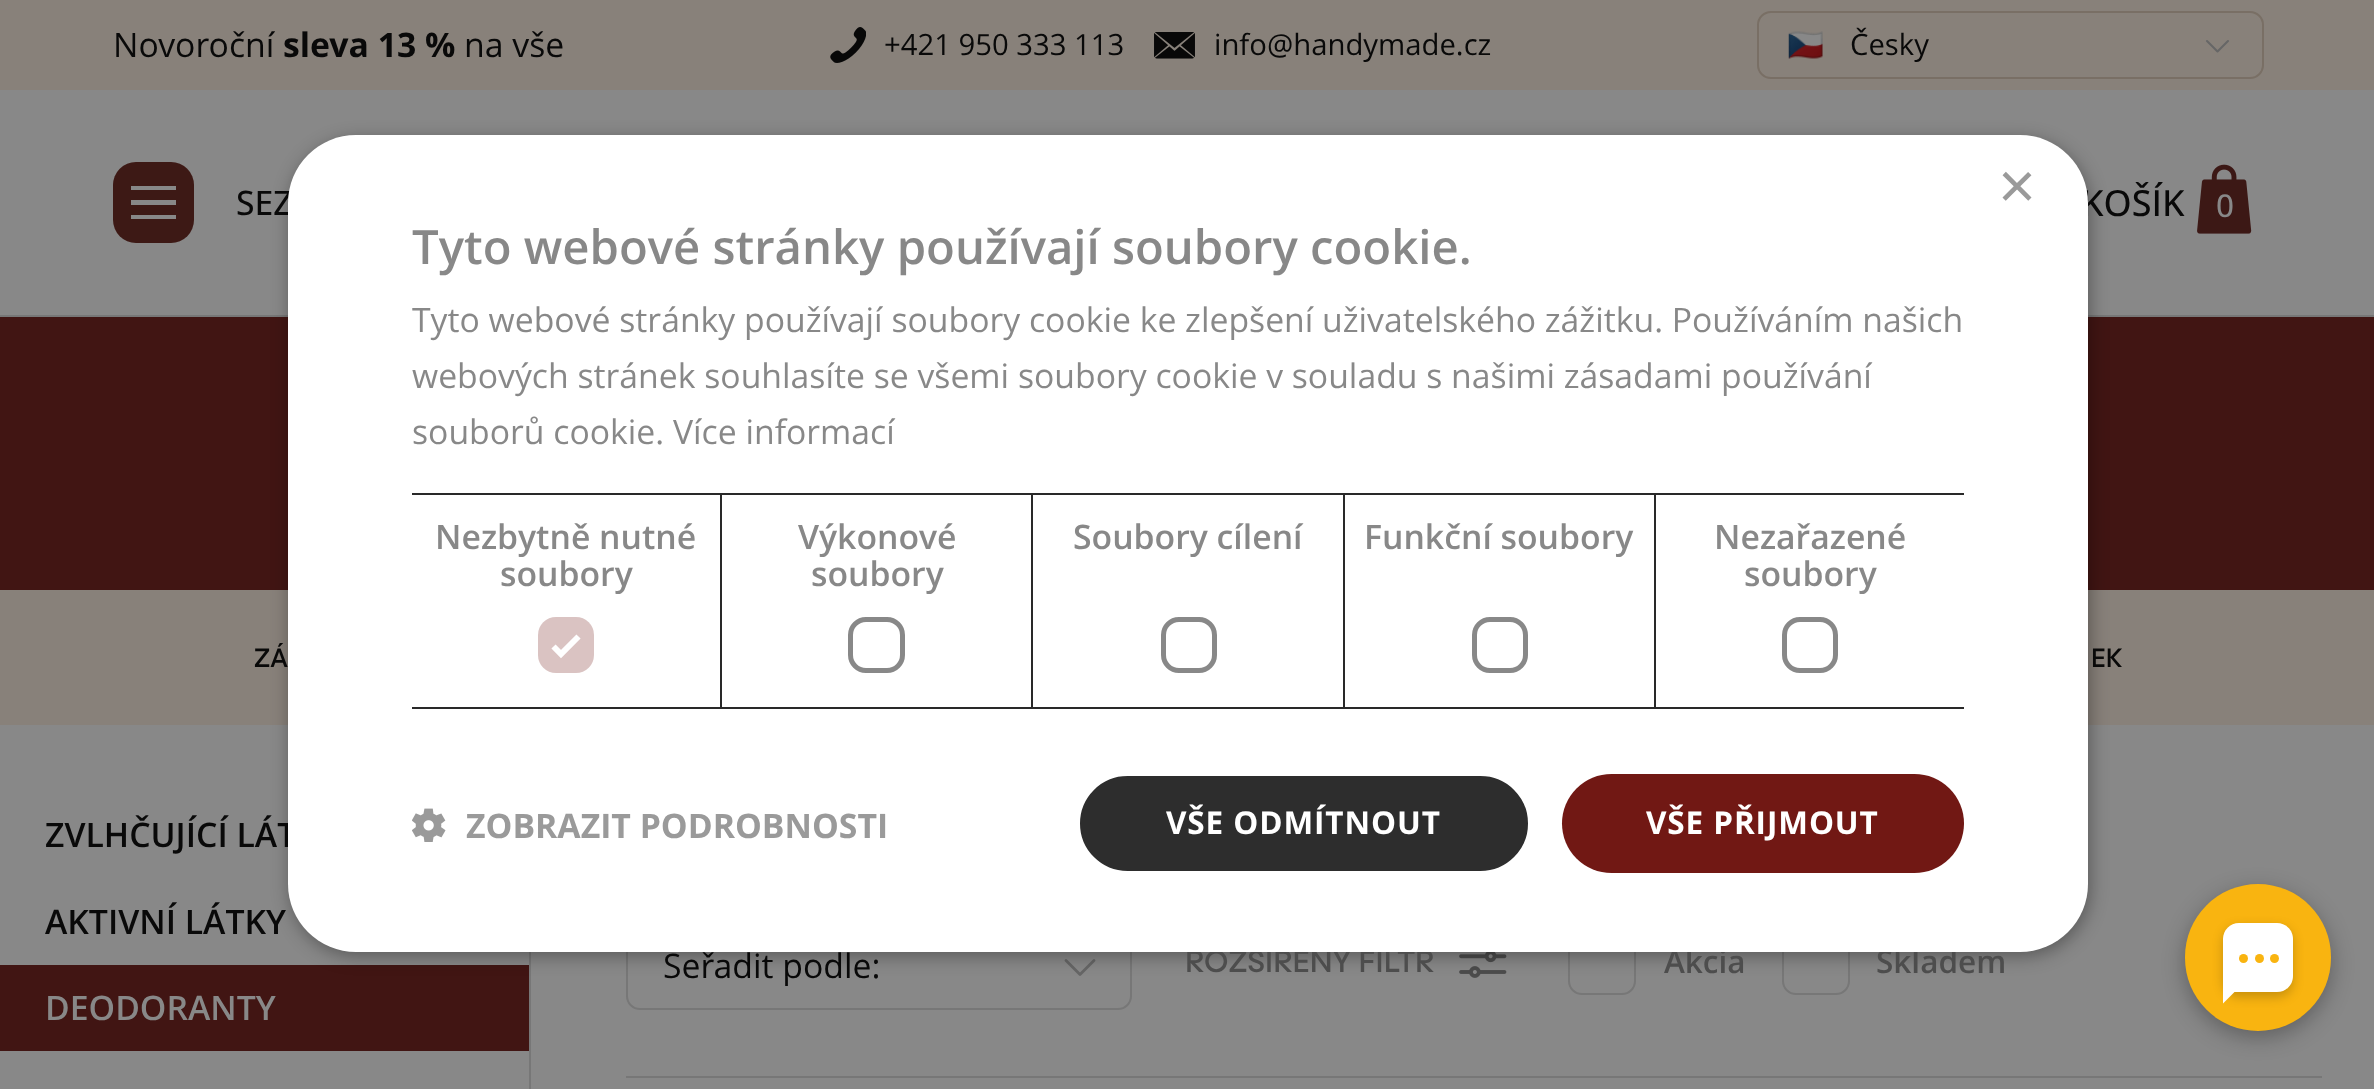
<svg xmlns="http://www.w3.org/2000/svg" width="2374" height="1089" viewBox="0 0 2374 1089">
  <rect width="100%" height="100%" fill="rgb(136,136,136)"/>
  <rect x="0" y="0" width="2374" height="90" fill="rgb(136,129,122)"/>
  <text x="113" y="57" font-family="Open Sans" font-size="33.75" fill="rgb(9,9,9)">Novoroční</text>
  <text x="283" y="57" font-family="Open Sans" font-size="33.75" font-weight="bold" fill="rgb(9,9,9)">sleva 13 %</text>
  <text x="464" y="57" font-family="Open Sans" font-size="33.75" fill="rgb(9,9,9)">na vše</text>
  <image x="830" y="27" width="36" height="36" href="pic1.png"/>
  <text x="884" y="55" font-family="Open Sans" font-size="29.25" fill="rgb(9,9,9)">+421 950 333 113</text>
  <image x="1154" y="32" width="41" height="27" href="pic2.png"/>
  <text x="1214" y="55" font-family="Open Sans" font-size="29.25" fill="rgb(9,9,9)">info@handymade.cz</text>
  <rect x="1758" y="12" width="505" height="66" rx="13" fill="none" stroke="rgb(121,111,101)" stroke-width="2"/>
  <image x="1788" y="31" width="35" height="28" href="pic3.png"/>
  <text x="1850" y="55" font-family="Open Sans" font-size="29.25" fill="rgb(9,9,9)">Česky</text>
  <path d="M2228 41L2217.5 51.5L2207 41" fill="none" stroke="rgb(102,102,102)" stroke-width="2.1" stroke-linecap="round" stroke-linejoin="round"/>
  <rect x="0" y="315" width="2374" height="2" fill="rgb(119,119,119)"/>
  <rect x="0" y="317" width="2374" height="273" fill="rgb(65,21,19)"/>
  <rect x="0" y="590" width="2374" height="135" fill="rgb(136,129,122)"/>
  <rect x="0" y="965" width="529" height="86" fill="rgb(65,21,19)"/>
  <rect x="529" y="952" width="2" height="137" fill="rgb(119,119,119)"/>
  <rect x="627" y="921" width="504" height="88" rx="13" fill="none" stroke="rgb(119,119,119)" stroke-width="2"/>
  <path d="M1094 960.5L1080 974.5L1066 960.5" fill="none" stroke="rgb(102,102,102)" stroke-width="2.8" stroke-linecap="round" stroke-linejoin="round"/>
  <image x="1459" y="952" width="48" height="26" href="pic6.png"/>
  <rect x="1569" y="928" width="66" height="66" rx="13" fill="none" stroke="rgb(119,119,119)" stroke-width="2"/>
  <rect x="1783" y="928" width="66" height="66" rx="13" fill="none" stroke="rgb(119,119,119)" stroke-width="2"/>
  <rect x="290" y="140" width="1800" height="816" rx="68" fill="rgba(0,0,0,0.35)" filter="blur(9px)"/>
  <text x="236" y="215" font-family="Open Sans" font-size="33.75" font-weight="500" fill="rgb(9,9,9)">SEZ</text>
  <text x="2081" y="216" font-family="Open Sans" font-size="36" font-weight="500" fill="rgb(9,9,9)">KOŠÍK</text>
  <text x="45" y="847" font-family="Open Sans" font-size="33.75" font-weight="600" fill="rgb(9,9,9)">ZVLHČUJÍCÍ LÁT</text>
  <text x="1185" y="972" font-family="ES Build" font-size="31.5" font-weight="500" fill="rgb(77,77,77)">ROZŠÍŘENÝ FILTR</text>
  <g font-family="Open Sans" font-size="31.5" font-weight="600" fill="rgb(77,77,77)">
    <text x="1664" y="973">Akcia</text>
    <text x="1876" y="973">Skladem</text>
  </g>
  <rect x="288" y="135" width="1800" height="817" rx="68" fill="rgb(255,255,255)"/>
  <text x="1998" y="208" font-family="Liberation Sans" font-size="65" fill="rgb(154,154,154)">×</text>
  <text x="412" y="264" font-family="'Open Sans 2'" font-size="47.25" font-weight="600" fill="rgb(136,136,136)">Tyto webové stránky používají soubory cookie.</text>
  <g font-family="'Open Sans 2'" font-size="33.75" fill="rgb(136,136,136)">
    <text>
      <tspan x="412" y="332">Tyto webové stránky používají soubory cookie ke zlepšení uživatelského zážitku. Používáním našich</tspan>
      <tspan x="412" y="388">webových stránek souhlasíte se všemi soubory cookie v souladu s našimi zásadami používání</tspan>
      <tspan x="412" y="444">souborů cookie. Více informací</tspan>
    </text>
  </g>
  <rect x="412" y="493" width="1552" height="2" fill="rgb(41,41,41)"/>
  <rect x="720" y="493" width="2" height="216" fill="rgb(41,41,41)"/>
  <rect x="412" y="707" width="310" height="2" fill="rgb(41,41,41)"/>
  <g font-family="'Open Sans 2'" font-size="33.75" font-weight="600" fill="rgb(136,136,136)">
    <text x="435" y="549">Nezbytně nutné</text>
    <text x="500" y="586">soubory</text>
  </g>
  <rect x="538" y="617" width="56" height="56" rx="18" fill="rgb(218,195,194)"/>
  <path d="M553.5 646.5L561 654L578.5 636.5" fill="none" stroke="rgb(255,255,255)" stroke-width="5.9"/>
  <rect x="1031" y="493" width="2" height="216" fill="rgb(41,41,41)"/>
  <rect x="722" y="707" width="311" height="2" fill="rgb(41,41,41)"/>
  <g font-family="'Open Sans 2'" font-size="33.75" font-weight="600" fill="rgb(136,136,136)">
    <text x="798" y="549">Výkonové</text>
    <text x="811" y="586">soubory</text>
  </g>
  <rect x="850.5" y="619.5" width="52" height="51" rx="15.5" fill="none" stroke="rgb(136,136,136)" stroke-width="5"/>
  <rect x="1343" y="493" width="2" height="216" fill="rgb(41,41,41)"/>
  <rect x="1033" y="707" width="313" height="2" fill="rgb(41,41,41)"/>
  <text x="1073" y="549" font-family="'Open Sans 2'" font-size="33.75" font-weight="600" fill="rgb(136,136,136)">Soubory cílení</text>
  <rect x="1163.5" y="619.5" width="51" height="51" rx="15.5" fill="none" stroke="rgb(136,136,136)" stroke-width="5"/>
  <rect x="1654" y="493" width="2" height="216" fill="rgb(41,41,41)"/>
  <rect x="1346" y="707" width="618" height="2" fill="rgb(41,41,41)"/>
  <text x="1364" y="549" font-family="'Open Sans 2'" font-size="33.75" font-weight="600" fill="rgb(136,136,136)">Funkční soubory</text>
  <rect x="1474.5" y="619.5" width="51" height="51" rx="15.5" fill="none" stroke="rgb(136,136,136)" stroke-width="5"/>
  <g font-family="'Open Sans 2'" font-size="33.75" font-weight="600" fill="rgb(136,136,136)">
    <text x="1714" y="549">Nezařazené</text>
    <text x="1744" y="586">soubory</text>
  </g>
  <rect x="1784.5" y="619.5" width="51" height="51" rx="15.5" fill="none" stroke="rgb(136,136,136)" stroke-width="5"/>
  <image x="412" y="808" width="34" height="34" href="pic4.png"/>
  <text x="466" y="838" font-family="'Open Sans 2'" font-size="33.75" font-weight="bold" fill="rgb(154,154,154)">ZOBRAZIT PODROBNOSTI</text>
  <rect x="1079" y="775" width="450" height="97" rx="48.5" fill="rgb(45,45,45)" stroke="rgb(255,255,255)" stroke-width="2"/>
  <text x="1166" y="834" font-family="'Open Sans 2'" font-size="31.5" font-weight="bold" letter-spacing="0.9" fill="rgb(255,255,255)">VŠE ODMÍTNOUT</text>
  <rect x="1562" y="774" width="402" height="99" rx="49.5" fill="rgb(113,24,20)"/>
  <text x="1646" y="834" font-family="'Open Sans 2'" font-size="31.5" font-weight="bold" letter-spacing="0.9" fill="rgb(255,255,255)">VŠE PŘIJMOUT</text>
  <rect x="113" y="162" width="81" height="81" rx="23" fill="rgb(61,25,21)"/>
  <rect x="131" y="186" width="45" height="4" fill="rgb(136,136,136)"/>
  <rect x="131" y="200" width="45" height="5" fill="rgb(136,136,136)"/>
  <rect x="131" y="215" width="45" height="4" fill="rgb(136,136,136)"/>
  <image x="2197" y="164" width="55" height="70" href="pic5.png"/>
  <text x="2216" y="217" font-family="Open Sans" font-size="31.5" font-weight="500" fill="rgb(136,136,136)">0</text>
  <g font-family="ES Build" font-size="27" font-weight="500" fill="rgb(9,9,9)">
    <text x="254" y="667">ZÁ</text>
    <text x="2091" y="667">EK</text>
  </g>
  <text x="45" y="934" font-family="Open Sans" font-size="33.75" font-weight="600" fill="rgb(9,9,9)">AKTIVNÍ LÁTKY</text>
  <text x="45" y="1020" font-family="Open Sans" font-size="33.75" font-weight="600" fill="rgb(136,136,136)">DEODORANTY</text>
  <text x="663" y="978" font-family="Open Sans" font-size="33.75" fill="rgb(9,9,9)">Seřadit podle:</text>
  <rect x="626" y="1076" width="1696" height="2" fill="rgb(119,119,119)"/>
  <rect x="2185" y="891" width="146" height="146" rx="73" fill="rgba(0,0,0,0.3)" filter="blur(11px)"/>
  <rect x="2185" y="884" width="146" height="147" rx="73" fill="rgb(249,180,16)"/>
  <rect x="2223" y="927" width="70" height="70" rx="16" fill="rgba(0,0,0,0.2)" filter="blur(5.5px)"/>
  <path d="M2239 923H2277C2286 923 2293 930 2293 939V976C2293 985 2286 992 2277 992H2223V939C2223 930 2230 923 2239 923Z" fill="rgb(255,255,255)"/>
  <circle cx="2243.5" cy="958.5" r="4.5" fill="rgb(249,180,16)"/>
  <circle cx="2259.5" cy="958.5" r="4.5" fill="rgb(249,180,16)"/>
  <circle cx="2274.5" cy="958.5" r="4.5" fill="rgb(249,180,16)"/>
  <path d="M2223 1003.5V981H2245.5Z" fill="rgb(255,255,255)"/>
</svg>
